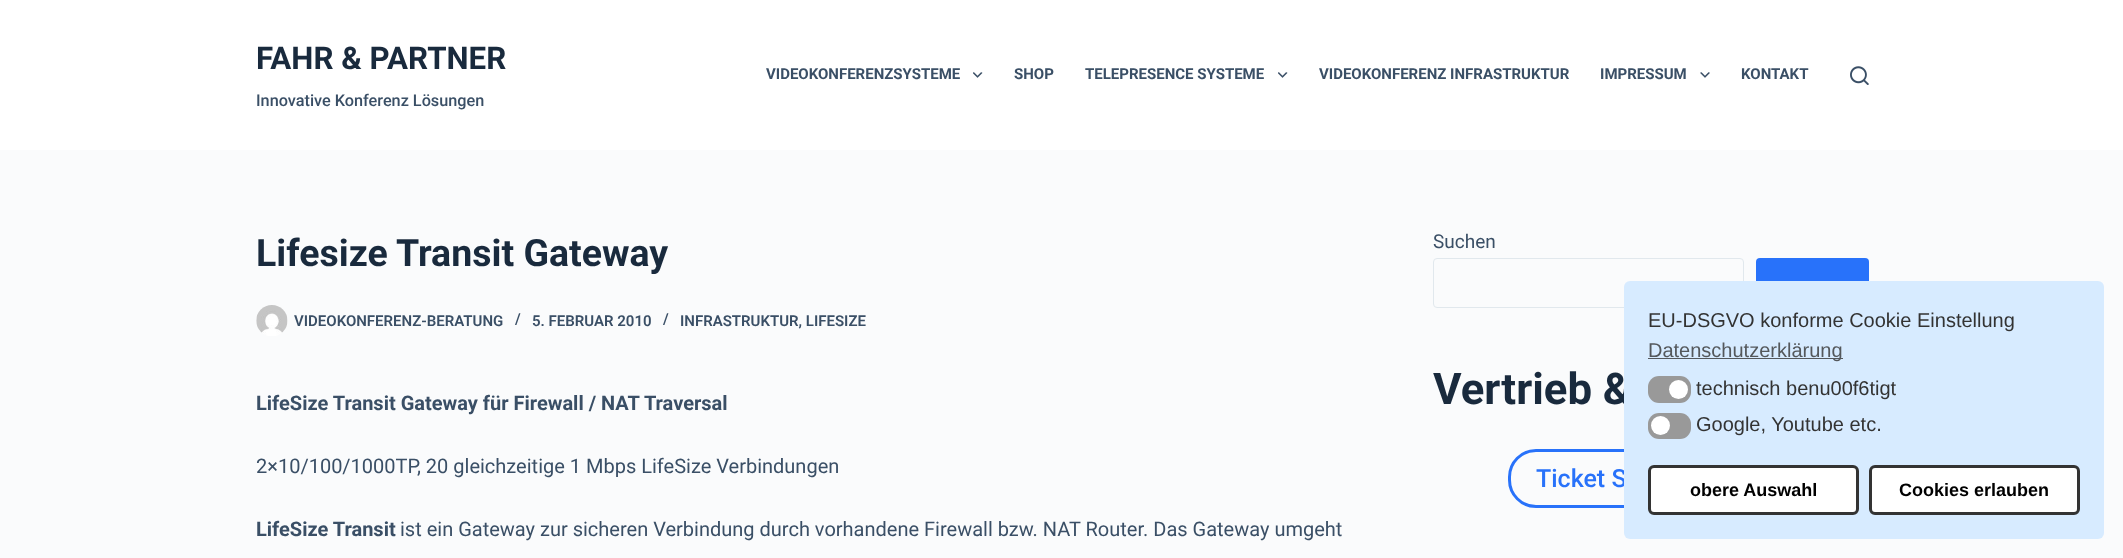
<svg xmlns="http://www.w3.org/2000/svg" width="2123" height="558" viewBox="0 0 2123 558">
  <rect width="100%" height="100%" fill="rgb(250,251,252)"/>
  <rect x="0" y="0" width="2123" height="150" fill="rgb(255,255,255)"/>
  <text x="256" y="69" font-family="Roboto" font-size="31.25" font-weight="bold" fill="rgb(25,42,61)">FAHR &amp; PARTNER</text>
  <text x="256" y="106" font-family="Roboto" font-size="16.25" font-weight="500" fill="rgb(58,79,102)">Innovative Konferenz Lösungen</text>
  <text x="766" y="79" font-family="Roboto" font-size="15" font-weight="bold" fill="rgb(58,79,102)">VIDEOKONFERENZSYSTEME</text>
  <image x="973" y="72" width="10" height="6" href="pic1.png"/>
  <g font-family="Roboto" font-size="15" font-weight="bold" fill="rgb(58,79,102)">
    <text x="1014" y="79">SHOP</text>
    <text x="1085" y="79">TELEPRESENCE SYSTEME</text>
  </g>
  <image x="1278" y="72" width="10" height="6" href="pic1.png"/>
  <g font-family="Roboto" font-size="15" font-weight="bold" fill="rgb(58,79,102)">
    <text x="1319" y="79">VIDEOKONFERENZ INFRASTRUKTUR</text>
    <text x="1600" y="79">IMPRESSUM</text>
  </g>
  <image x="1700" y="72" width="10" height="6" href="pic2.png"/>
  <text x="1741" y="79" font-family="Roboto" font-size="15" font-weight="bold" fill="rgb(58,79,102)">KONTAKT</text>
  <image x="1850" y="66" width="19" height="19" href="pic3.png"/>
  <text x="256" y="266" font-family="Roboto" font-size="37.5" font-weight="bold" fill="rgb(25,42,61)">Lifesize Transit Gateway</text>
  <image x="256" y="305" width="32" height="31" href="pic4.png"/>
  <g font-family="Roboto" font-size="15" font-weight="600" fill="rgb(58,79,102)">
    <text x="294" y="326">VIDEOKONFERENZ-BERATUNG</text>
    <text x="515" y="324">/</text>
    <text x="532" y="326">5. FEBRUAR 2010</text>
    <text x="663" y="324">/</text>
    <text x="680" y="326">INFRASTRUKTUR, LIFESIZE</text>
  </g>
  <text x="256" y="410" font-family="Roboto" font-size="20" font-weight="bold" fill="rgb(58,79,102)">LifeSize Transit Gateway für Firewall / NAT Traversal</text>
  <text x="256" y="473" font-family="Roboto" font-size="20" fill="rgb(58,79,102)">2×10/100/1000TP, 20 gleichzeitige 1 Mbps LifeSize Verbindungen</text>
  <text x="256" y="536" font-family="Roboto" font-size="20" font-weight="bold" fill="rgb(58,79,102)">LifeSize Transit</text>
  <text x="400" y="536" font-family="Roboto" font-size="20" fill="rgb(58,79,102)">ist ein Gateway zur sicheren Verbindung durch vorhandene Firewall bzw. NAT Router. Das Gateway umgeht</text>
  <text x="1433" y="248" font-family="Roboto" font-size="19" fill="rgb(58,79,102)">Suchen</text>
  <rect x="1433.5" y="258.5" width="310" height="49" rx="3.5" fill="none" stroke="rgb(225,232,237)"/>
  <rect x="1756" y="258" width="113" height="50" rx="4" fill="rgb(40,114,250)"/>
  <text x="1433" y="404" font-family="Roboto" font-size="43.75" font-weight="bold" fill="rgb(25,42,61)">Vertrieb &amp;</text>
  <rect x="1509.5" y="450.5" width="282" height="56" rx="26.5" fill="none" stroke="rgb(40,114,250)" stroke-width="3"/>
  <text x="1536" y="487" font-family="Roboto" font-size="25" font-weight="500" fill="rgb(40,114,250)">Ticket S</text>
  <rect x="1624" y="281" width="480" height="258" rx="6" fill="rgb(215,235,255)"/>
  <text x="1648" y="327" font-family="Liberation Sans" font-size="20" fill="rgb(51,51,51)">EU-DSGVO konforme Cookie Einstellung</text>
  <rect x="1648" y="358" width="195" height="1" fill="rgb(84,88,92)"/>
  <text x="1648" y="357" font-family="Liberation Sans" font-size="20" fill="rgb(84,88,92)">Datenschutzerklärung</text>
  <rect x="1648" y="376" width="43" height="27" rx="11" fill="rgb(153,153,153)"/>
  <circle cx="1678.5" cy="389.5" r="9.5" fill="rgb(255,255,255)"/>
  <text x="1696" y="395" font-family="Liberation Sans" font-size="20" fill="rgb(51,51,51)">technisch benu00f6tigt</text>
  <rect x="1648" y="413" width="43" height="26" rx="11" fill="rgb(153,153,153)"/>
  <circle cx="1660.5" cy="425.5" r="9.5" fill="rgb(255,255,255)"/>
  <text x="1696" y="431" font-family="Liberation Sans" font-size="20" fill="rgb(51,51,51)">Google, Youtube etc.</text>
  <rect x="1649.5" y="466.5" width="208" height="47" rx="4.5" fill="rgb(255,255,255)" stroke="rgb(51,51,51)" stroke-width="3"/>
  <text x="1690" y="496" font-family="Liberation Sans" font-size="18" font-weight="bold" fill="rgb(0,0,0)">obere Auswahl</text>
  <rect x="1870.5" y="466.5" width="208" height="47" rx="4.5" fill="rgb(255,255,255)" stroke="rgb(51,51,51)" stroke-width="3"/>
  <text x="1899" y="496" font-family="Liberation Sans" font-size="18" font-weight="bold" fill="rgb(0,0,0)">Cookies erlauben</text>
</svg>
